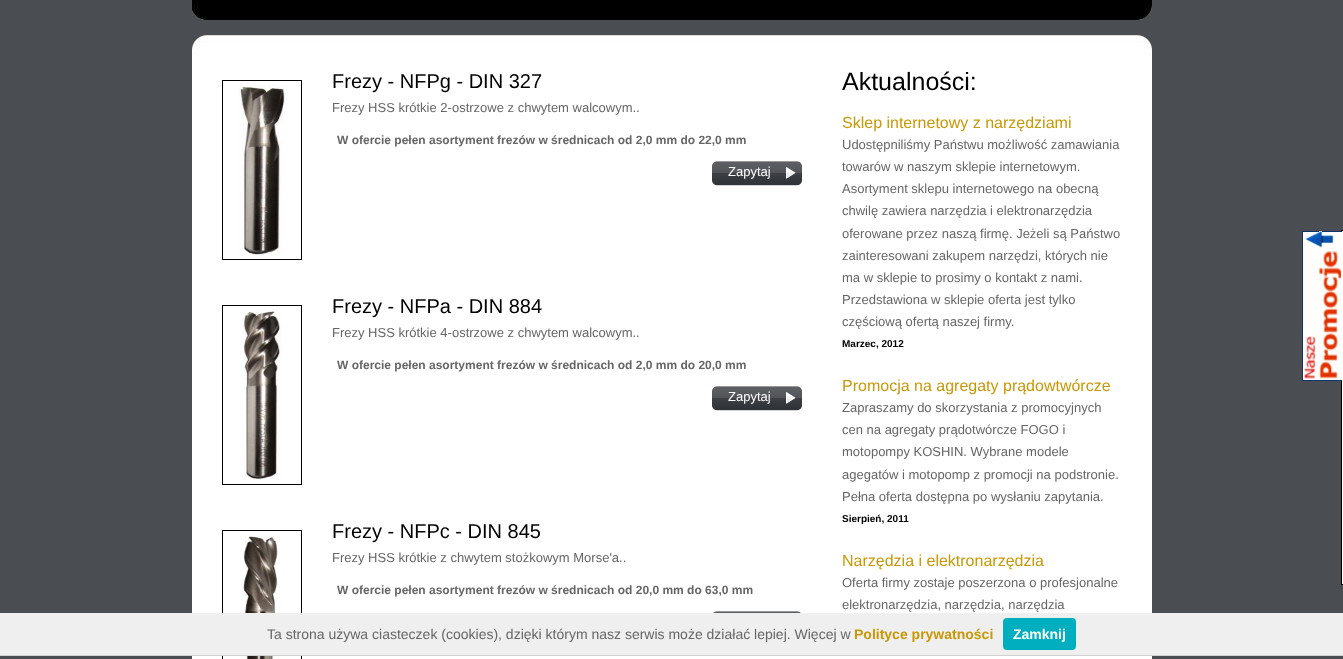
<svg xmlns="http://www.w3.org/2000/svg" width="1343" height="659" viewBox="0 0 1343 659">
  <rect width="100%" height="100%" fill="rgb(74,77,81)"/>
  <image x="192" y="0" width="960" height="20" href="pic1.png"/>
  <rect x="192" y="0" width="960" height="1" fill="rgba(0,0,0,0.8)"/>
  <rect x="192" y="50" width="960" height="609" fill="rgb(255,255,255)"/>
  <image x="192" y="35" width="960" height="15" href="pic2.png"/>
  <rect x="222.5" y="80.5" width="79" height="179" fill="none" stroke="rgb(0,0,0)"/>
  <image x="238" y="85" width="48" height="170" href="pic3.png"/>
  <text x="332" y="88" font-family="Liberation Sans" font-size="20" fill="rgb(0,0,0)">Frezy - NFPg - DIN 327</text>
  <text x="332" y="112" font-family="Liberation Sans" font-size="13" fill="rgb(102,102,102)">Frezy HSS krótkie 2-ostrzowe z chwytem walcowym..</text>
  <text x="337" y="144" font-family="Liberation Sans" font-size="12" font-weight="bold" fill="rgb(102,102,102)">W ofercie pełen asortyment frezów w średnicach od 2,0 mm do 22,0 mm</text>
  <image x="712" y="161" width="90" height="25" href="pic4.png"/>
  <text x="728" y="176" font-family="Liberation Sans" font-size="13" fill="rgb(255,255,255)">Zapytaj</text>
  <rect x="222.5" y="305.5" width="79" height="179" fill="none" stroke="rgb(0,0,0)"/>
  <image x="242" y="310" width="41" height="170" href="pic5.png"/>
  <text x="332" y="313" font-family="Liberation Sans" font-size="20" fill="rgb(0,0,0)">Frezy - NFPa - DIN 884</text>
  <text x="332" y="337" font-family="Liberation Sans" font-size="13" fill="rgb(102,102,102)">Frezy HSS krótkie 4-ostrzowe z chwytem walcowym..</text>
  <text x="337" y="369" font-family="Liberation Sans" font-size="12" font-weight="bold" fill="rgb(102,102,102)">W ofercie pełen asortyment frezów w średnicach od 2,0 mm do 20,0 mm</text>
  <image x="712" y="386" width="90" height="25" href="pic4.png"/>
  <text x="728" y="401" font-family="Liberation Sans" font-size="13" fill="rgb(255,255,255)">Zapytaj</text>
  <rect x="222.5" y="530.5" width="79" height="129" fill="none" stroke="rgb(0,0,0)"/>
  <image x="243" y="535" width="35" height="124" href="pic6.png"/>
  <text x="332" y="538" font-family="Liberation Sans" font-size="20" fill="rgb(0,0,0)">Frezy - NFPc - DIN 845</text>
  <text x="332" y="562" font-family="Liberation Sans" font-size="13" fill="rgb(102,102,102)">Frezy HSS krótkie z chwytem stożkowym Morse'a..</text>
  <text x="337" y="594" font-family="Liberation Sans" font-size="12" font-weight="bold" fill="rgb(102,102,102)">W ofercie pełen asortyment frezów w średnicach od 20,0 mm do 63,0 mm</text>
  <image x="712" y="611" width="90" height="2" href="pic7.png"/>
  <text x="842" y="90" font-family="Liberation Sans" font-size="25" fill="rgb(0,0,0)">Aktualności:</text>
  <text x="842" y="128" font-family="Liberation Sans" font-size="16" fill="rgb(200,152,6)">Sklep internetowy z narzędziami</text>
  <g font-family="Liberation Sans" font-size="13" fill="rgb(102,102,102)">
    <text>
      <tspan x="842" y="149">Udostępniliśmy Państwu możliwość zamawiania</tspan>
      <tspan x="842" y="171">towarów w naszym sklepie internetowym.</tspan>
      <tspan x="842" y="193">Asortyment sklepu internetowego na obecną</tspan>
      <tspan x="842" y="215">chwilę zawiera narzędzia i elektronarzędzia</tspan>
      <tspan x="842" y="238">oferowane przez naszą firmę. Jeżeli są Państwo</tspan>
      <tspan x="842" y="260">zainteresowani zakupem narzędzi, których nie</tspan>
      <tspan x="842" y="282">ma w sklepie to prosimy o kontakt z nami.</tspan>
      <tspan x="842" y="304">Przedstawiona w sklepie oferta jest tylko</tspan>
      <tspan x="842" y="326">częściową ofertą naszej firmy.</tspan>
    </text>
  </g>
  <text x="842" y="347" font-family="Liberation Sans" font-size="10" font-weight="bold" fill="rgb(0,0,0)">Marzec, 2012</text>
  <text x="842" y="391" font-family="Liberation Sans" font-size="16" fill="rgb(200,152,6)">Promocja na agregaty prądowtwórcze</text>
  <g font-family="Liberation Sans" font-size="13" fill="rgb(102,102,102)">
    <text>
      <tspan x="842" y="412">Zapraszamy do skorzystania z promocyjnych</tspan>
      <tspan x="842" y="434">cen na agregaty prądotwórcze FOGO i</tspan>
      <tspan x="842" y="456">motopompy KOSHIN. Wybrane modele</tspan>
      <tspan x="842" y="479">agegatów i motopomp z promocji na podstronie.</tspan>
      <tspan x="842" y="501">Pełna oferta dostępna po wysłaniu zapytania.</tspan>
    </text>
  </g>
  <text x="842" y="522" font-family="Liberation Sans" font-size="10" font-weight="bold" fill="rgb(0,0,0)">Sierpień, 2011</text>
  <text x="842" y="566" font-family="Liberation Sans" font-size="16" fill="rgb(200,152,6)">Narzędzia i elektronarzędzia</text>
  <g font-family="Liberation Sans" font-size="13" fill="rgb(102,102,102)">
    <text>
      <tspan x="842" y="587">Oferta firmy zostaje poszerzona o profesjonalne</tspan>
      <tspan x="842" y="609">elektronarzędzia, narzędzia, narzędzia</tspan>
    </text>
  </g>
  <rect x="1341.5" y="230.5" width="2" height="354" fill="rgb(255,255,255)" stroke="rgb(0,0,0)"/>
  <image x="1302" y="231" width="40" height="150" href="pic8.png"/>
  <rect x="0" y="613" width="1343" height="42" fill="rgb(239,239,239)"/>
  <rect x="0" y="655" width="1343" height="1" fill="rgb(211,208,208)"/>
  <text x="267" y="639" font-family="Liberation Sans" font-size="14" fill="rgb(102,102,102)">Ta strona używa ciasteczek (cookies), dzięki którym nasz serwis może działać lepiej. Więcej w</text>
  <text x="854" y="639" font-family="Liberation Sans" font-size="14" font-weight="bold" fill="rgb(200,152,6)">Polityce prywatności</text>
  <rect x="1003" y="618" width="73" height="32" rx="4" fill="rgb(0,175,191)"/>
  <text x="1013" y="639" font-family="Liberation Sans" font-size="14" font-weight="bold" fill="rgb(255,255,255)">Zamknij</text>
</svg>
